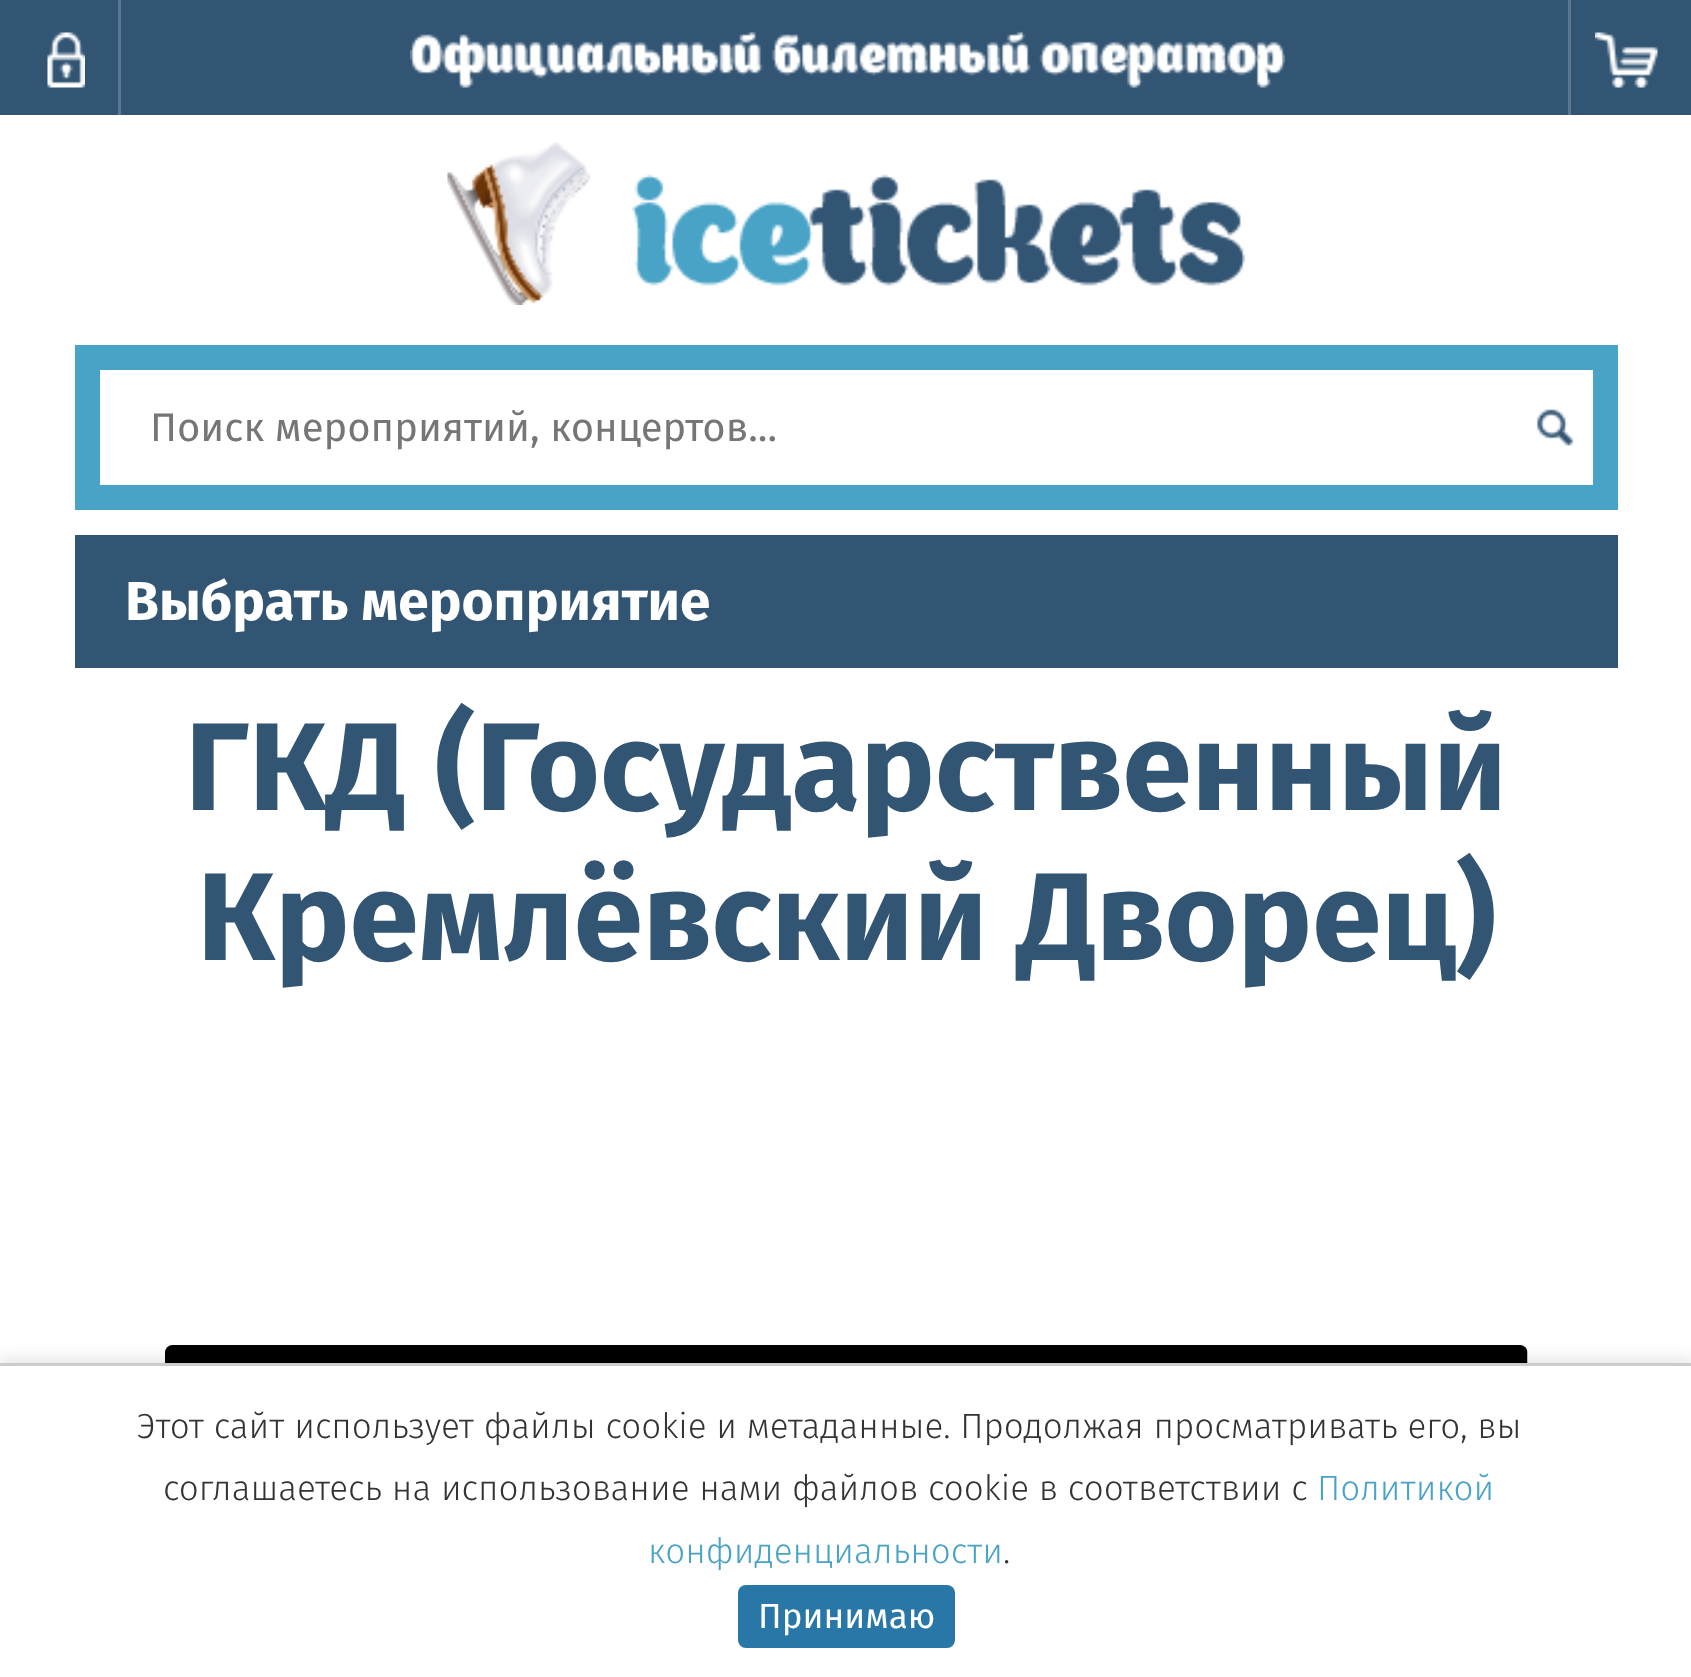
<svg xmlns="http://www.w3.org/2000/svg" width="1691" height="1677" viewBox="0 0 1691 1677">
  <rect width="100%" height="100%" fill="rgb(255,255,255)"/>
  <rect x="0" y="0" width="1691" height="115" fill="rgb(50,85,116)"/>
  <rect x="118" y="0" width="3" height="115" fill="rgb(91,119,144)"/>
  <image x="47" y="32" width="38" height="56" href="pic1.png"/>
  <rect x="1568" y="0" width="3" height="115" fill="rgb(91,119,144)"/>
  <image x="1595" y="32" width="63" height="56" href="pic2.png"/>
  <image x="410" y="31" width="875" height="57" href="pic3.png"/>
  <image x="447" y="142" width="798" height="163" href="pic4.png"/>
  <rect x="75" y="345" width="1543" height="165" fill="rgb(72,163,198)"/>
  <rect x="100" y="370" width="1493" height="115" fill="rgb(255,255,255)"/>
  <text x="150" y="441" font-family="Fira Sans" font-size="40" fill="rgb(118,118,118)">Поиск мероприятий, концертов...</text>
  <image x="1536" y="409" width="38" height="37" href="pic5.png"/>
  <rect x="75" y="535" width="1543" height="133" fill="rgb(50,85,116)"/>
  <text x="125" y="620" font-family="Fira Sans" font-size="55" font-weight="bold" fill="rgb(255,255,255)">Выбрать мероприятие</text>
  <g font-family="Fira Sans" font-size="125" font-weight="bold" fill="rgb(50,85,116)">
    <text x="185" y="810">ГКД (Государственный</text>
    <text x="197" y="960">Кремлёвский Дворец)</text>
  </g>
  <image x="165" y="1345" width="1363" height="18" href="pic6.png"/>
  <rect x="0" y="1358" width="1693" height="315" fill="rgba(0,0,0,0.1)" filter="blur(7.5px)"/>
  <rect x="0" y="1366" width="1691" height="311" fill="rgb(255,255,255)"/>
  <rect x="0" y="1363" width="1691" height="3" fill="rgb(204,204,204)"/>
  <g font-family="Fira Sans" font-size="35" font-weight="300" fill="rgb(51,51,51)">
    <text x="137" y="1438">Этот сайт использует файлы cookie и метаданные. Продолжая просматривать его, вы</text>
    <text x="163" y="1500">соглашаетесь на использование нами файлов cookie в соответствии с</text>
  </g>
  <g font-family="Fira Sans" font-size="35" font-weight="300" fill="rgb(72,163,198)">
    <text x="1317" y="1500">Политикой</text>
    <text x="648" y="1563">конфиденциальности</text>
  </g>
  <text x="1003" y="1563" font-family="Fira Sans" font-size="35" font-weight="300" fill="rgb(51,51,51)">.</text>
  <rect x="738" y="1585" width="217" height="63" rx="8" fill="rgb(41,119,167)"/>
  <text x="758" y="1628" font-family="Fira Sans" font-size="35" fill="rgb(255,255,255)">Принимаю</text>
</svg>
